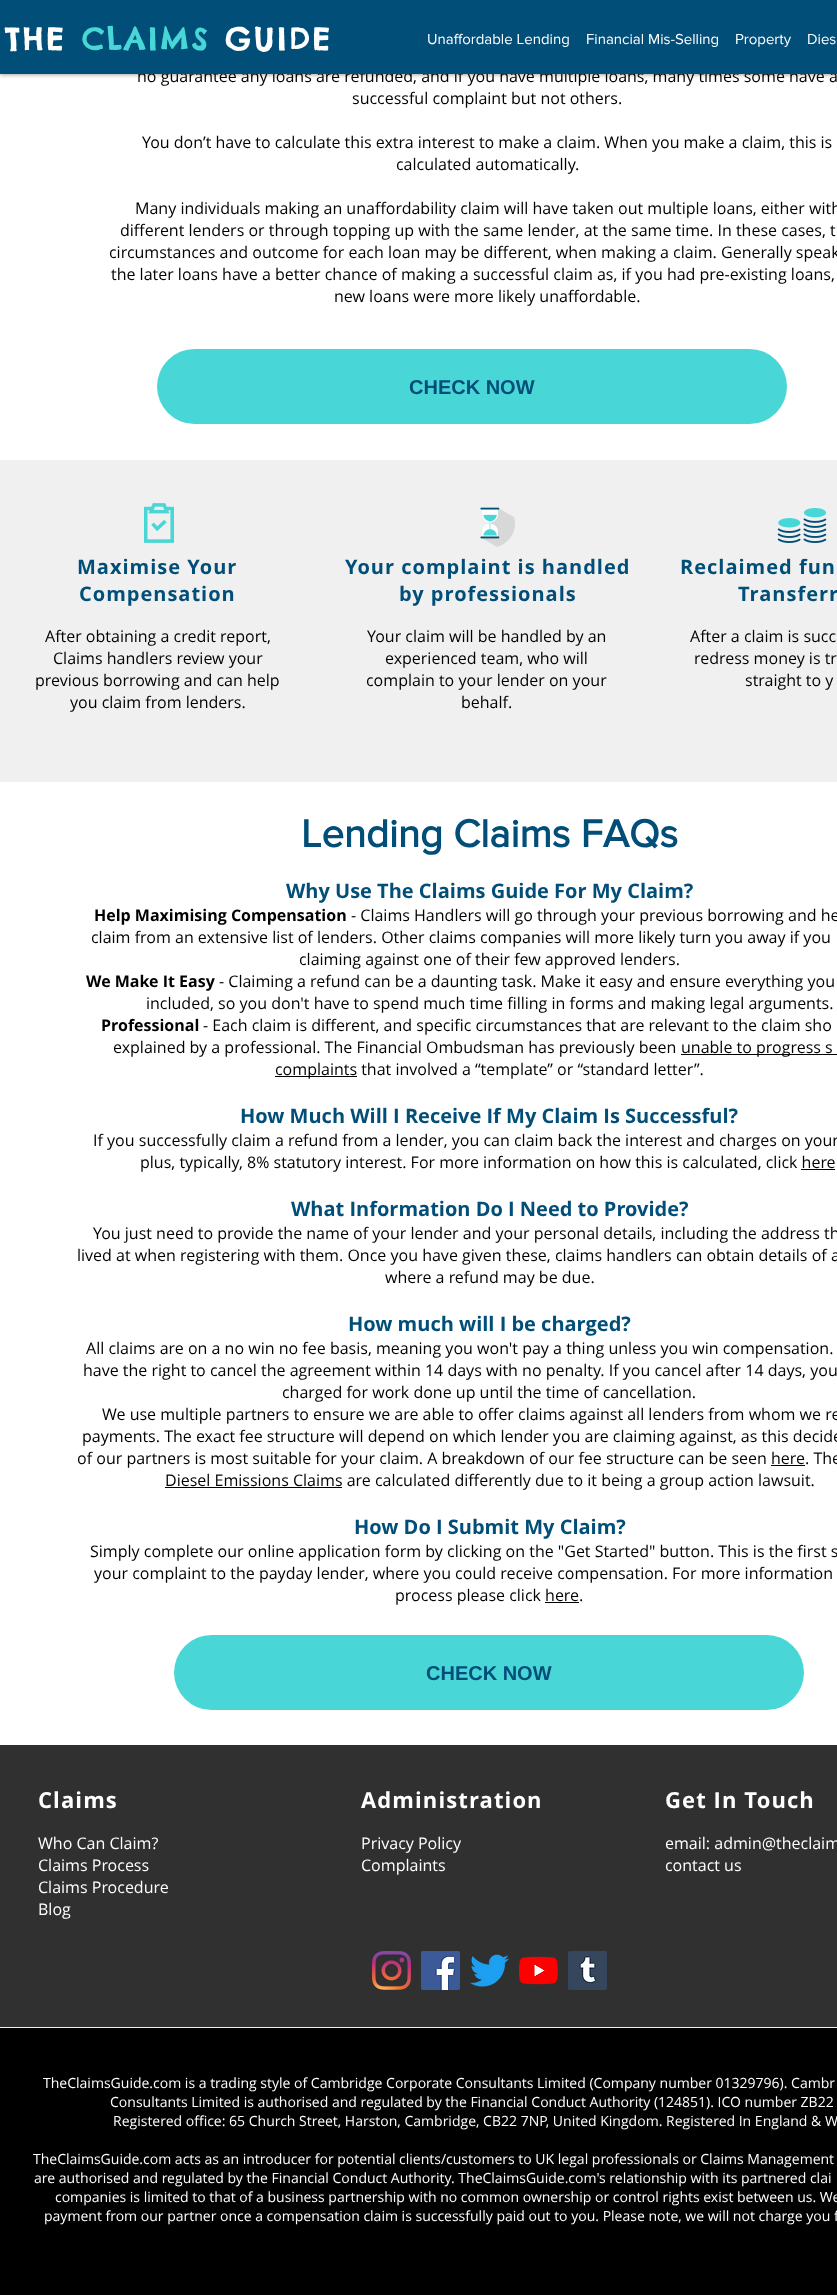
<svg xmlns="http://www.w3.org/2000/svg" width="837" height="2295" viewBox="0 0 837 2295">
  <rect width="100%" height="100%" fill="rgb(240,240,240)"/>
  <rect x="0" y="74" width="837" height="386" fill="rgb(255,255,255)"/>
  <rect x="0" y="0" width="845" height="74" fill="rgba(0,0,0,0.5)" filter="blur(2.5px)"/>
  <text x="137" y="82" font-family="Open Sans" font-size="16" fill="rgb(0,0,0)">no guarantee any loans are refunded, and if you have multiple loans, many times some have a</text>
  <rect x="0" y="0" width="837" height="74" fill="rgb(1,78,120)"/>
  <text x="5" y="50" font-family="Chelsea Market" font-size="30" font-weight="bold" letter-spacing="3" fill="rgb(255,255,255)">THE</text>
  <text x="82" y="50" font-family="Chelsea Market" font-size="30" font-weight="bold" letter-spacing="3" fill="rgb(73,214,214)">CLAIMS</text>
  <text x="225" y="50" font-family="Chelsea Market" font-size="30" font-weight="bold" letter-spacing="3" fill="rgb(255,255,255)">GUIDE</text>
  <g font-family="'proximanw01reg'" font-size="15" fill="rgb(255,255,255)">
    <text x="427" y="44">Unaffordable Lending</text>
    <text x="586" y="44">Financial Mis-Selling</text>
    <text x="735" y="44">Property</text>
    <text x="807" y="44">Dies</text>
  </g>
  <g font-family="Open Sans" font-size="16" fill="rgb(0,0,0)">
    <text x="352" y="104">successful complaint but not others.</text>
    <text x="142" y="148">You don’t have to calculate this extra interest to make a claim. When you make a claim, this is</text>
    <text x="396" y="170">calculated automatically.</text>
    <text x="135" y="214">Many individuals making an unaffordability claim will have taken out multiple loans, either with</text>
    <text x="120" y="236">different lenders or through topping up with the same lender, at the same time. In these cases, t</text>
    <text x="109" y="258">circumstances and outcome for each loan may be different, when making a claim. Generally speak</text>
    <text x="111" y="280">the later loans have a better chance of making a successful claim as, if you had pre-existing loans,</text>
    <text x="334" y="302">new loans were more likely unaffordable.</text>
  </g>
  <rect x="157" y="349" width="630" height="75" rx="37.5" fill="rgb(73,214,214)"/>
  <text x="409" y="394" font-family="Liberation Sans" font-size="20" font-weight="bold" fill="rgb(1,78,120)">CHECK NOW</text>
  <image x="144" y="503" width="30" height="40" href="pic1.png"/>
  <image x="480" y="507" width="35" height="40" href="pic2.png"/>
  <image x="777" y="508" width="50" height="35" href="pic3.png"/>
  <g font-family="Open Sans" font-size="20" font-weight="bold" letter-spacing="1" fill="rgb(1,78,120)">
    <text x="77" y="574">Maximise Your</text>
    <text x="79" y="601">Compensation</text>
    <text x="345" y="574">Your complaint is handled</text>
    <text x="399" y="601">by professionals</text>
    <text x="680" y="574">Reclaimed fun</text>
    <text x="738" y="601">Transferr</text>
  </g>
  <g font-family="Open Sans" font-size="16" fill="rgb(0,0,0)">
    <text x="45" y="642">After obtaining a credit report,</text>
    <text x="53" y="664">Claims handlers review your</text>
    <text x="35" y="686">previous borrowing and can help</text>
    <text x="70" y="708">you claim from lenders.</text>
    <text x="367" y="642">Your claim will be handled by an</text>
    <text x="385" y="664">experienced team, who will</text>
    <text x="366" y="686">complain to your lender on your</text>
    <text x="461" y="708">behalf.</text>
    <text x="690" y="642">After a claim is succ</text>
    <text x="694" y="664">redress money is tr</text>
    <text x="745" y="686">straight to y</text>
  </g>
  <rect x="0" y="782" width="837" height="963" fill="rgb(255,255,255)"/>
  <text x="301" y="847" font-family="'proximanw01reg'" font-size="40" font-weight="bold" fill="rgb(1,78,120)">Lending Claims FAQs</text>
  <text x="286" y="898" font-family="Open Sans" font-size="20" font-weight="bold" fill="rgb(1,78,120)">Why Use The Claims Guide For My Claim?</text>
  <text x="94" y="921" font-family="Open Sans" font-size="16" font-weight="bold" fill="rgb(0,0,0)">Help Maximising Compensation</text>
  <g font-family="Open Sans" font-size="16" fill="rgb(0,0,0)">
    <text x="351" y="921">- Claims Handlers will go through your previous borrowing and he</text>
    <text x="91" y="943">claim from an extensive list of lenders. Other claims companies will more likely turn you away if you</text>
    <text x="299" y="965">claiming against one of their few approved lenders.</text>
  </g>
  <text x="86" y="987" font-family="Open Sans" font-size="16" font-weight="bold" fill="rgb(0,0,0)">We Make It Easy</text>
  <g font-family="Open Sans" font-size="16" fill="rgb(0,0,0)">
    <text x="219" y="987">- Claiming a refund can be a daunting task. Make it easy and ensure everything you</text>
    <text x="146" y="1009">included, so you don't have to spend much time filling in forms and making legal arguments.</text>
  </g>
  <text x="101" y="1031" font-family="Open Sans" font-size="16" font-weight="bold" fill="rgb(0,0,0)">Professional</text>
  <g font-family="Open Sans" font-size="16" fill="rgb(0,0,0)">
    <text x="203" y="1031">- Each claim is different, and specific circumstances that are relevant to the claim sho</text>
    <text x="113" y="1053">explained by a professional. The Financial Ombudsman has previously been</text>
  </g>
  <rect x="681" y="1054" width="156" height="1" fill="rgb(0,0,0)"/>
  <text x="681" y="1053" font-family="Open Sans" font-size="16" fill="rgb(0,0,0)">unable to progress s</text>
  <rect x="275" y="1076" width="82" height="1" fill="rgb(0,0,0)"/>
  <text x="275" y="1075" font-family="Open Sans" font-size="16" fill="rgb(0,0,0)">complaints that involved a “template” or “standard letter”.</text>
  <text x="240" y="1123" font-family="Open Sans" font-size="20" font-weight="bold" fill="rgb(1,78,120)">How Much Will I Receive If My Claim Is Successful?</text>
  <g font-family="Open Sans" font-size="16" fill="rgb(0,0,0)">
    <text x="93" y="1146">If you successfully claim a refund from a lender, you can claim back the interest and charges on your</text>
    <text x="140" y="1168">plus, typically, 8% statutory interest. For more information on how this is calculated, click here</text>
  </g>
  <rect x="801" y="1169" width="34" height="1" fill="rgb(0,0,0)"/>
  <text x="291" y="1216" font-family="Open Sans" font-size="20" font-weight="bold" fill="rgb(1,78,120)">What Information Do I Need to Provide?</text>
  <g font-family="Open Sans" font-size="16" fill="rgb(0,0,0)">
    <text x="93" y="1239">You just need to provide the name of your lender and your personal details, including the address th</text>
    <text x="77" y="1261">lived at when registering with them. Once you have given these, claims handlers can obtain details of a</text>
    <text x="385" y="1283">where a refund may be due.</text>
  </g>
  <text x="348" y="1331" font-family="Open Sans" font-size="20" font-weight="bold" fill="rgb(1,78,120)">How much will I be charged?</text>
  <g font-family="Open Sans" font-size="16" fill="rgb(0,0,0)">
    <text x="86" y="1354">All claims are on a no win no fee basis, meaning you won't pay a thing unless you win compensation.</text>
    <text x="83" y="1376">have the right to cancel the agreement within 14 days with no penalty. If you cancel after 14 days, you</text>
    <text x="282" y="1398">charged for work done up until the time of cancellation.</text>
    <text x="102" y="1420">We use multiple partners to ensure we are able to offer claims against all lenders from whom we re</text>
    <text x="82" y="1442">payments. The exact fee structure will depend on which lender you are claiming against, as this decide</text>
    <text x="77" y="1464">of our partners is most suitable for your claim. A breakdown of our fee structure can be seen here. The</text>
  </g>
  <rect x="771" y="1465" width="34" height="1" fill="rgb(0,0,0)"/>
  <rect x="165" y="1487" width="177" height="1" fill="rgb(0,0,0)"/>
  <text x="165" y="1486" font-family="Open Sans" font-size="16" fill="rgb(0,0,0)">Diesel Emissions Claims are calculated differently due to it being a group action lawsuit.</text>
  <text x="354" y="1534" font-family="Open Sans" font-size="20" font-weight="bold" fill="rgb(1,78,120)">How Do I Submit My Claim?</text>
  <g font-family="Open Sans" font-size="16" fill="rgb(0,0,0)">
    <text x="90" y="1557">Simply complete our online application form by clicking on the "Get Started" button. This is the first s</text>
    <text x="94" y="1579">your complaint to the payday lender, where you could receive compensation. For more information</text>
    <text x="395" y="1601">process please click here.</text>
  </g>
  <rect x="545" y="1602" width="34" height="1" fill="rgb(0,0,0)"/>
  <rect x="174" y="1635" width="630" height="75" rx="37.5" fill="rgb(73,214,214)"/>
  <text x="426" y="1680" font-family="Liberation Sans" font-size="20" font-weight="bold" fill="rgb(1,78,120)">CHECK NOW</text>
  <rect x="0" y="1745" width="837" height="282" fill="rgb(48,48,48)"/>
  <g font-family="Open Sans" font-size="22" font-weight="bold" letter-spacing="1.1" fill="rgb(255,255,255)">
    <text x="38" y="1808">Claims</text>
    <text x="361" y="1808">Administration</text>
    <text x="665" y="1808">Get In Touch</text>
  </g>
  <g font-family="Open Sans" font-size="16" fill="rgb(255,255,255)">
    <text>
      <tspan x="38" y="1849">Who Can Claim?</tspan>
      <tspan x="38" y="1871">Claims Process</tspan>
      <tspan x="38" y="1893">Claims Procedure</tspan>
      <tspan x="38" y="1915">Blog</tspan>
    </text>
    <text>
      <tspan x="361" y="1849">Privacy Policy</tspan>
      <tspan x="361" y="1871">Complaints</tspan>
    </text>
    <text>
      <tspan x="665" y="1849">email: admin@theclaim</tspan>
      <tspan x="665" y="1871">contact us</tspan>
    </text>
  </g>
  <image x="372" y="1951" width="39" height="39" href="pic4.png"/>
  <image x="421" y="1951" width="39" height="39" href="pic5.png"/>
  <image x="470" y="1954" width="39" height="33" href="pic6.png"/>
  <image x="519" y="1956" width="39" height="29" href="pic7.png"/>
  <image x="568" y="1951" width="39" height="39" href="pic8.png"/>
  <rect x="0" y="2028" width="837" height="267" fill="rgb(0,0,0)"/>
  <g font-family="Open Sans" font-size="14" fill="rgb(255,255,255)">
    <text x="43" y="2088">TheClaimsGuide.com is a trading style of Cambridge Corporate Consultants Limited (Company number 01329796). Cambr</text>
    <text x="110" y="2107">Consultants Limited is authorised and regulated by the Financial Conduct Authority (124851). ICO number ZB22</text>
    <text x="113" y="2126">Registered office: 65 Church Street, Harston, Cambridge, CB22 7NP, United Kingdom. Registered In England &amp; W</text>
    <text x="33" y="2164">TheClaimsGuide.com acts as an introducer for potential clients/customers to UK legal professionals or Claims Management</text>
    <text x="34" y="2183">are authorised and regulated by the Financial Conduct Authority. TheClaimsGuide.com's relationship with its partnered clai</text>
    <text x="55" y="2202">companies is limited to that of a business partnership with no common ownership or control rights exist between us. We</text>
    <text x="44" y="2221">payment from our partner once a compensation claim is successfully paid out to you. Please note, we will not charge you f</text>
  </g>
</svg>
